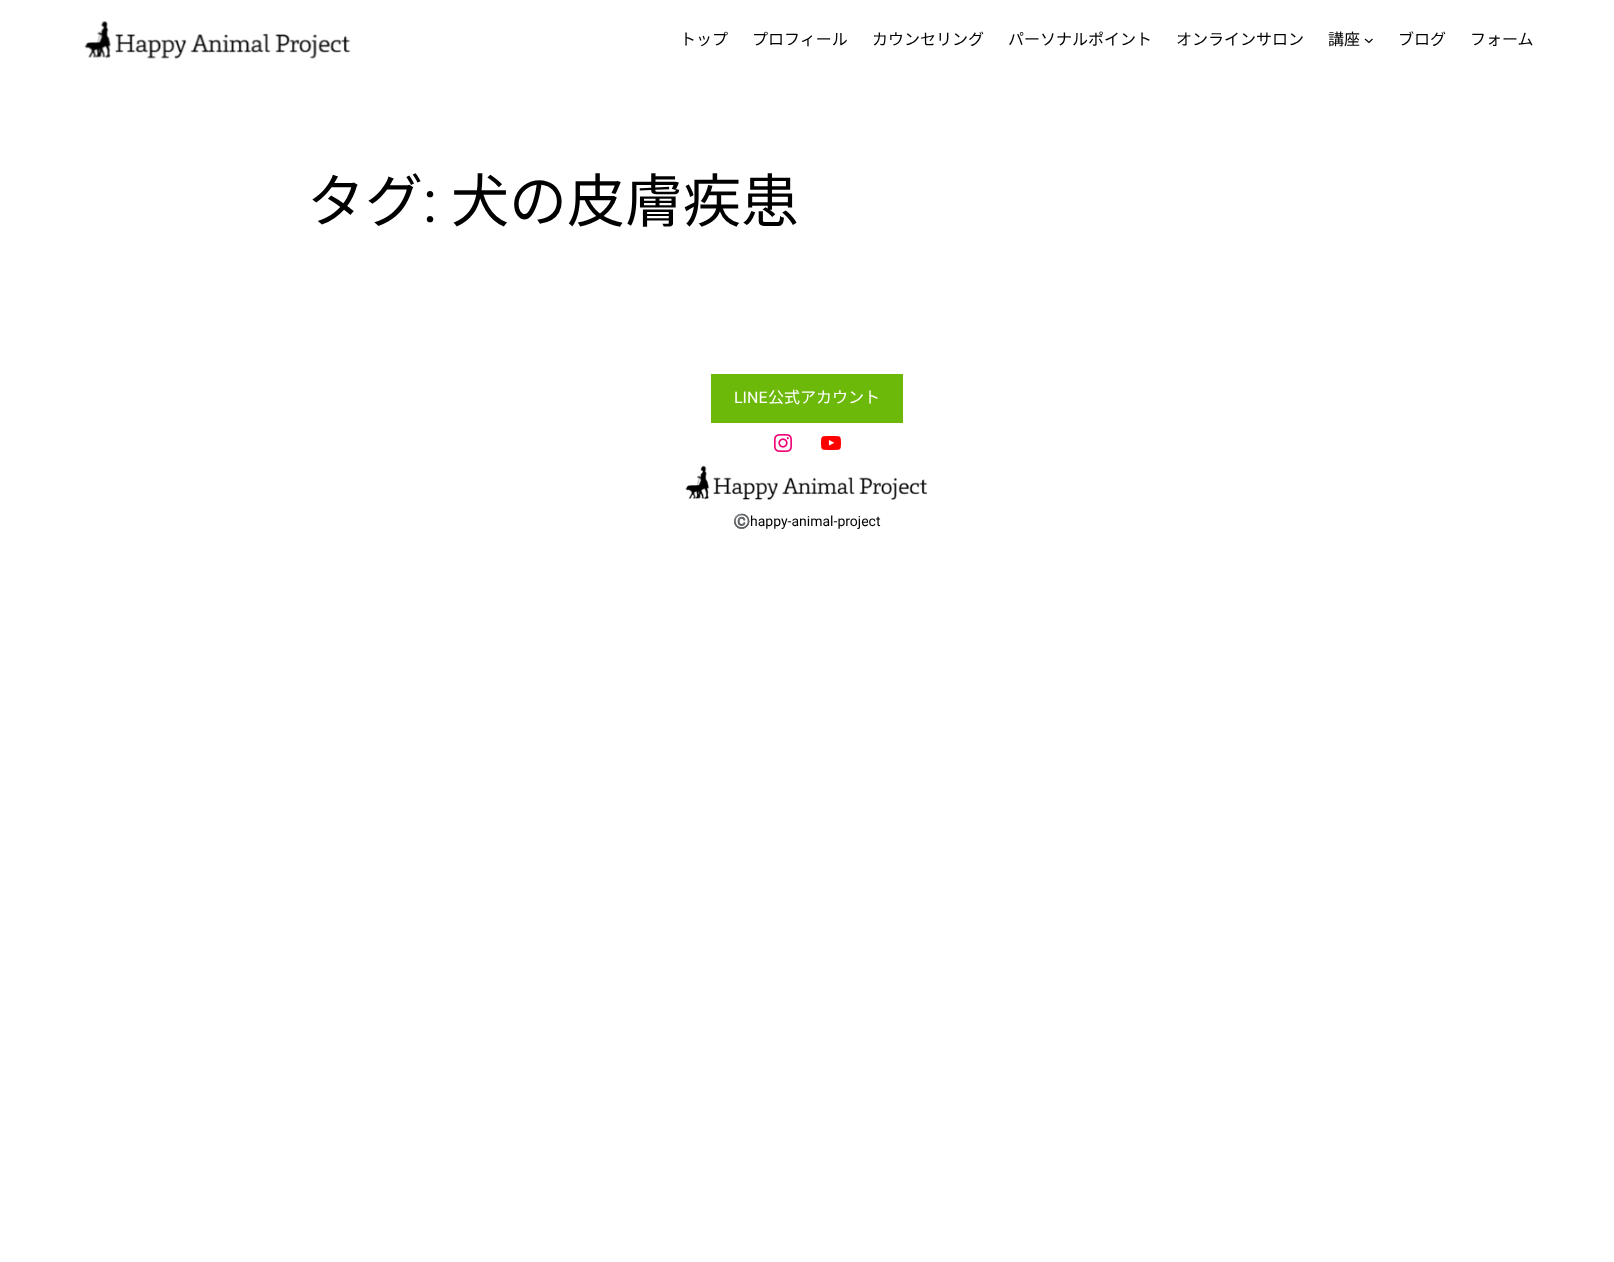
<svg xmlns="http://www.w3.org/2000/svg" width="1614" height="1262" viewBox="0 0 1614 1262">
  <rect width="100%" height="100%" fill="rgb(255,255,255)"/>
  <image x="84" y="20" width="267" height="39" href="pic1.png"/>
  <g font-family="Noto Sans CJK JP" font-size="16" fill="rgb(0,0,0)">
    <text x="680" y="45">トップ</text>
    <text x="752" y="45">プロフィール</text>
    <text x="872" y="45">カウンセリング</text>
    <text x="1008" y="45">パーソナルポイント</text>
    <text x="1176" y="45">オンラインサロン</text>
    <text x="1328" y="45">講座</text>
  </g>
  <path d="M1365 39L1369 42.5L1372.5 39" fill="none" stroke="rgb(0,0,0)" stroke-width="1.2"/>
  <g font-family="Noto Sans CJK JP" font-size="16" fill="rgb(0,0,0)">
    <text x="1398" y="45">ブログ</text>
    <text x="1470" y="45">フォーム</text>
  </g>
  <text x="307" y="222" font-family="Noto Sans CJK JP" font-size="58" fill="rgb(0,0,0)">タグ</text>
  <text x="423" y="222" font-family="Roboto" font-size="58" fill="rgb(0,0,0)">:</text>
  <text x="451" y="222" font-family="Noto Sans CJK JP" font-size="58" fill="rgb(0,0,0)">犬の皮膚疾患</text>
  <rect x="711" y="374" width="192" height="49" fill="rgb(109,185,9)"/>
  <text x="734" y="403" font-family="Roboto" font-size="16" fill="rgb(255,255,255)">LINE</text>
  <text x="768" y="403" font-family="Noto Sans CJK JP" font-size="16" fill="rgb(255,255,255)">公式アカウント</text>
  <image x="774" y="434" width="18" height="18" href="pic2.png"/>
  <image x="821" y="436" width="20" height="14" href="pic3.png"/>
  <image x="685" y="465" width="243" height="35" href="pic4.png"/>
  <text x="733" y="526" font-family="Noto Color Emoji" font-size="14" fill="rgb(0,0,0)">©️</text>
  <text x="750" y="526" font-family="Roboto" font-size="14" fill="rgb(0,0,0)">happy-animal-project</text>
</svg>
